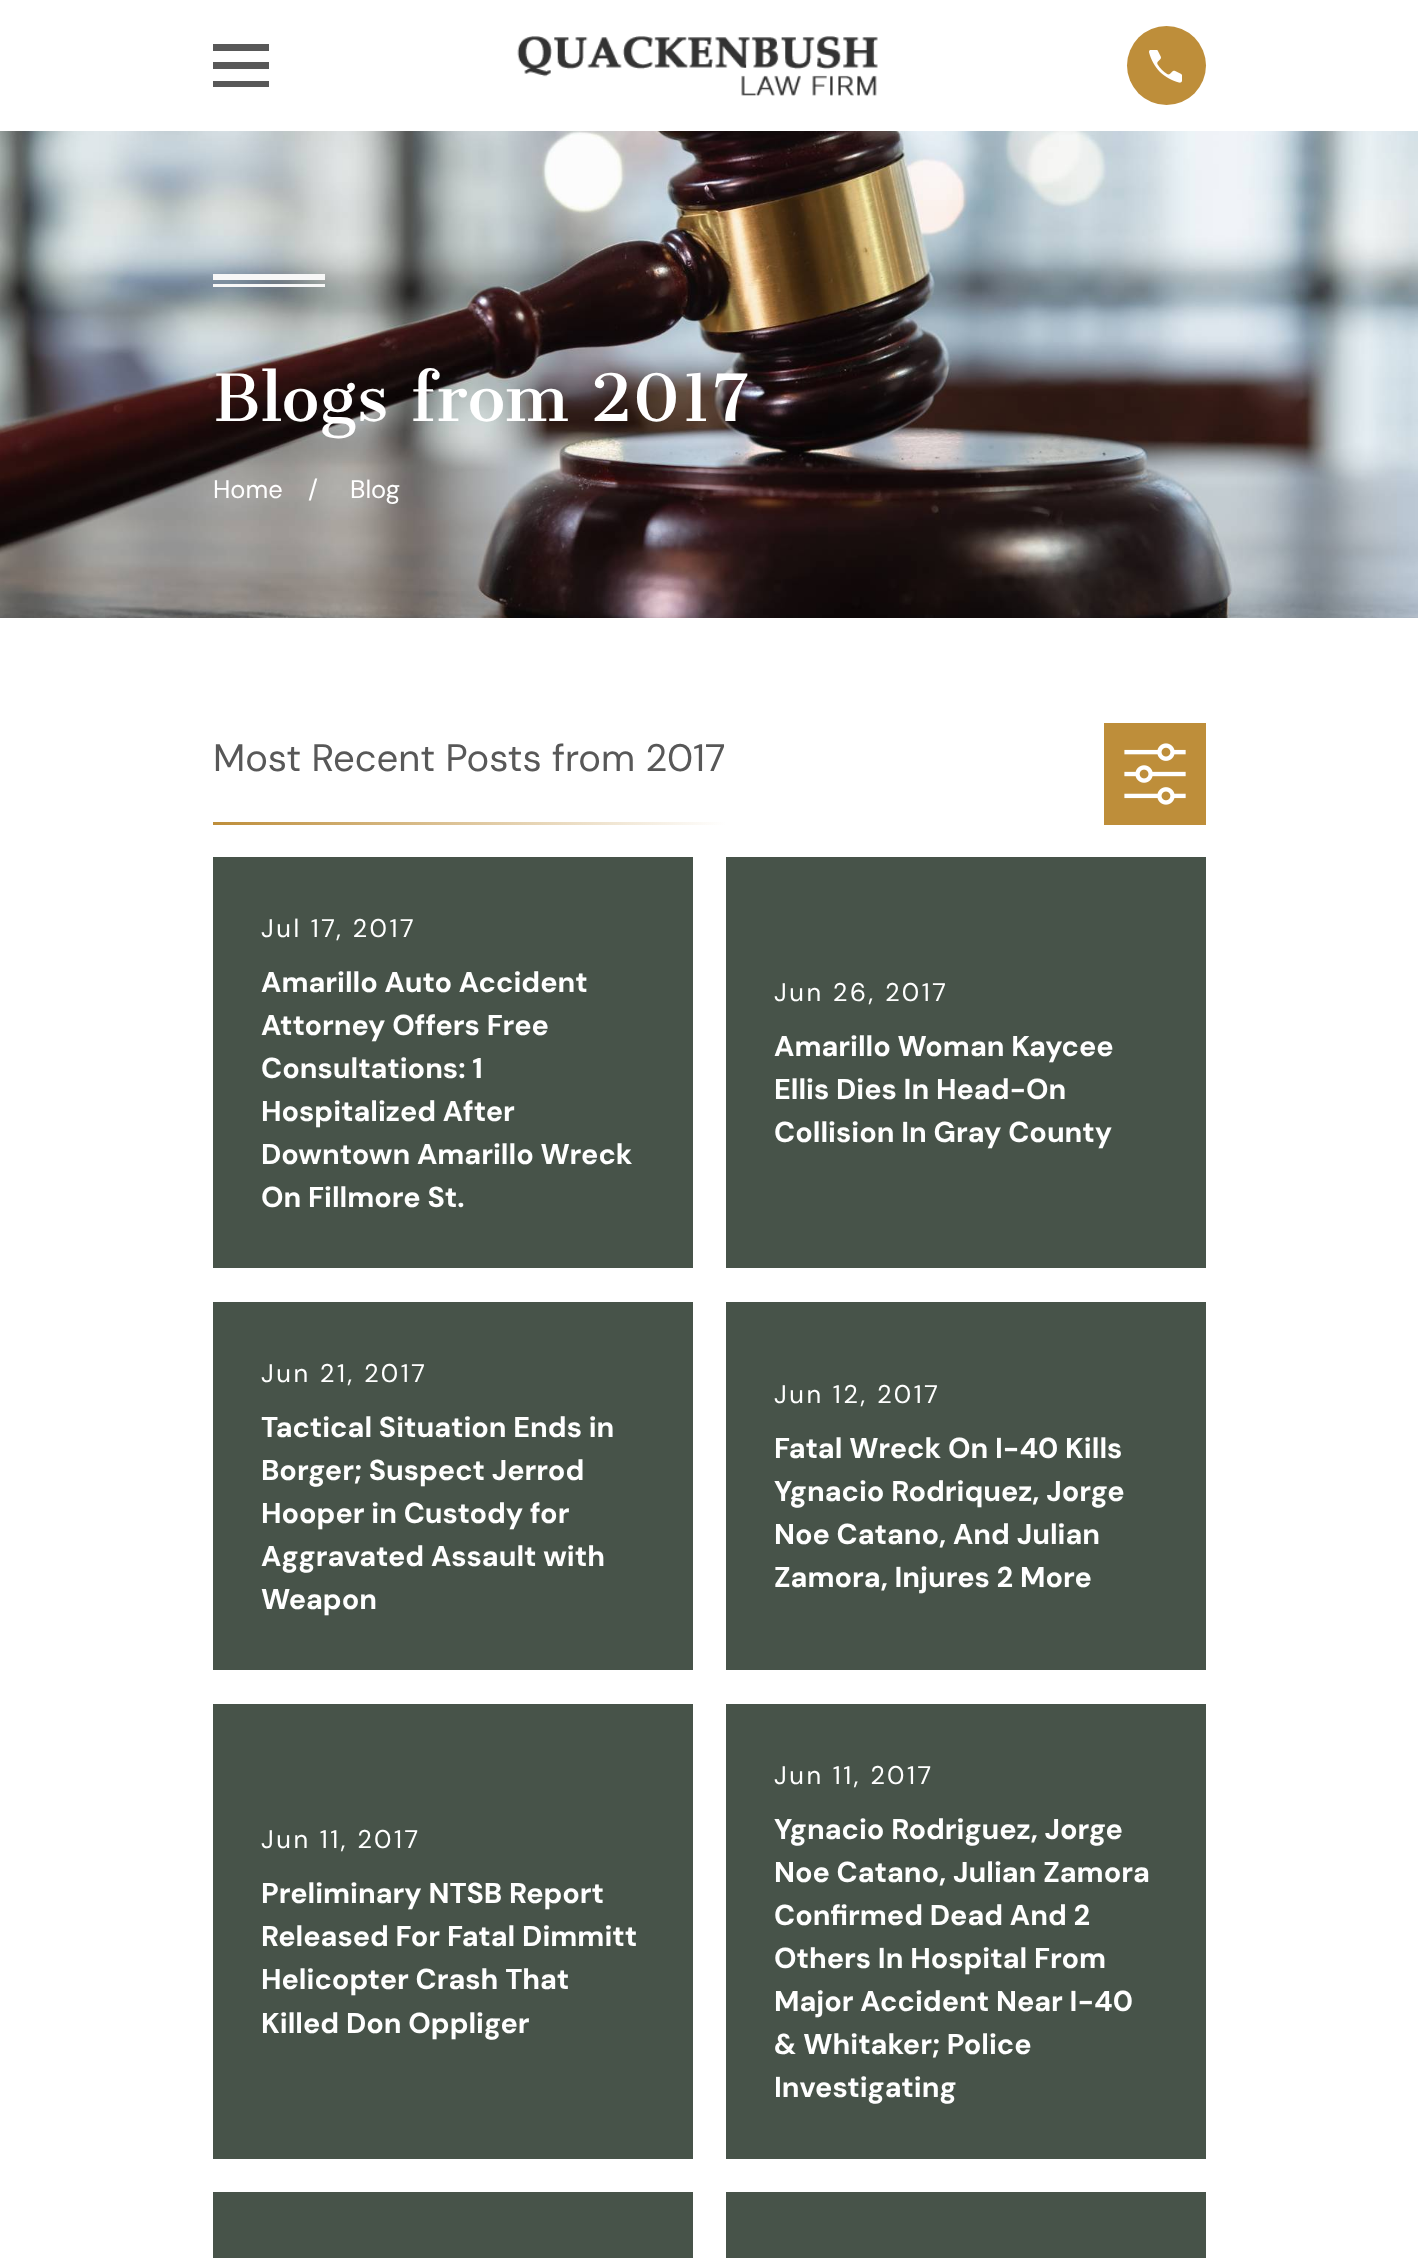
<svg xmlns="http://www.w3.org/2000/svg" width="1418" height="2258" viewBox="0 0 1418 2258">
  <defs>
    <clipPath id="clip1"><rect x="213" y="236" width="113" height="90"/></clipPath>
    <linearGradient id="g1" gradientUnits="userSpaceOnUse" x1="213" y1="824" x2="726" y2="824"><stop offset="0" stop-color="rgb(190,142,58)"/><stop offset="1" stop-color="rgb(255,255,255)"/></linearGradient>
  </defs>
  <rect width="100%" height="100%" fill="rgb(255,255,255)"/>
  <path d="M213 44V51H269V44ZM213 62V69H269V62ZM213 81V87H269V81Z" fill="rgb(88,88,88)"/>
  <image x="517" y="36" width="361" height="60" href="pic1.png"/>
  <circle cx="1166.5" cy="65.5" r="39.5" fill="rgb(190,142,58)"/>
  <image x="1149" y="50" width="33" height="33" href="pic2.png"/>
  <image x="0" y="131" width="1418" height="487" href="pic3.png"/>
  <g clip-path="url(#clip1)">
    <path d="M325 274V280H212V274ZM212 287H325V284H212Z" fill="rgb(247,247,247)"/>
  </g>
  <text x="213" y="421" font-family="Cantata One" font-size="63.75" fill="rgb(255,255,255)">Blogs from 2017</text>
  <g font-family="DM Sans" font-size="25.5" fill="rgb(255,255,255)">
    <text x="213" y="498">Home</text>
    <text x="308" y="498">/</text>
    <text x="350" y="498">Blog</text>
  </g>
  <text x="213" y="771" font-family="DM Sans" font-size="38.25" fill="rgb(88,88,88)">Most Recent Posts from 2017</text>
  <rect x="213" y="822" width="513" height="3" fill="url(#g1)"/>
  <rect x="1104" y="723" width="102" height="102" fill="rgb(190,142,58)"/>
  <image x="1124" y="743" width="62" height="62" href="pic4.png"/>
  <rect x="213" y="857" width="480" height="411" fill="rgb(71,83,73)"/>
  <text x="261" y="937" font-family="DM Sans" font-size="25.5" letter-spacing="2.5" fill="rgb(255,255,255)">Jul 17, 2017</text>
  <g font-family="DM Sans" font-size="28.75" font-weight="bold" fill="rgb(255,255,255)">
    <text>
      <tspan x="261" y="992">Amarillo Auto Accident</tspan>
      <tspan x="261" y="1035">Attorney Offers Free</tspan>
      <tspan x="261" y="1078">Consultations: 1</tspan>
      <tspan x="261" y="1121">Hospitalized After</tspan>
      <tspan x="261" y="1164">Downtown Amarillo Wreck</tspan>
      <tspan x="261" y="1207">On Fillmore St.</tspan>
    </text>
  </g>
  <rect x="726" y="857" width="480" height="411" fill="rgb(71,83,73)"/>
  <text x="774" y="1001" font-family="DM Sans" font-size="25.5" letter-spacing="2.5" fill="rgb(255,255,255)">Jun 26, 2017</text>
  <g font-family="DM Sans" font-size="28.75" font-weight="bold" fill="rgb(255,255,255)">
    <text>
      <tspan x="774" y="1056">Amarillo Woman Kaycee</tspan>
      <tspan x="774" y="1099">Ellis Dies In Head-On</tspan>
      <tspan x="774" y="1142">Collision In Gray County</tspan>
    </text>
  </g>
  <rect x="213" y="1302" width="480" height="368" fill="rgb(71,83,73)"/>
  <text x="261" y="1382" font-family="DM Sans" font-size="25.5" letter-spacing="2.5" fill="rgb(255,255,255)">Jun 21, 2017</text>
  <g font-family="DM Sans" font-size="28.75" font-weight="bold" fill="rgb(255,255,255)">
    <text>
      <tspan x="261" y="1437">Tactical Situation Ends in</tspan>
      <tspan x="261" y="1480">Borger; Suspect Jerrod</tspan>
      <tspan x="261" y="1523">Hooper in Custody for</tspan>
      <tspan x="261" y="1566">Aggravated Assault with</tspan>
      <tspan x="261" y="1609">Weapon</tspan>
    </text>
  </g>
  <rect x="726" y="1302" width="480" height="368" fill="rgb(71,83,73)"/>
  <text x="774" y="1403" font-family="DM Sans" font-size="25.5" letter-spacing="2.5" fill="rgb(255,255,255)">Jun 12, 2017</text>
  <g font-family="DM Sans" font-size="28.75" font-weight="bold" fill="rgb(255,255,255)">
    <text>
      <tspan x="774" y="1458">Fatal Wreck On I-40 Kills</tspan>
      <tspan x="774" y="1501">Ygnacio Rodriquez, Jorge</tspan>
      <tspan x="774" y="1544">Noe Catano, And Julian</tspan>
      <tspan x="774" y="1587">Zamora, Injures 2 More</tspan>
    </text>
  </g>
  <rect x="213" y="1704" width="480" height="455" fill="rgb(71,83,73)"/>
  <text x="261" y="1848" font-family="DM Sans" font-size="25.5" letter-spacing="2.5" fill="rgb(255,255,255)">Jun 11, 2017</text>
  <g font-family="DM Sans" font-size="28.75" font-weight="bold" fill="rgb(255,255,255)">
    <text>
      <tspan x="261" y="1903">Preliminary NTSB Report</tspan>
      <tspan x="261" y="1946">Released For Fatal Dimmitt</tspan>
      <tspan x="261" y="1989">Helicopter Crash That</tspan>
      <tspan x="261" y="2033">Killed Don Oppliger</tspan>
    </text>
  </g>
  <rect x="726" y="1704" width="480" height="455" fill="rgb(71,83,73)"/>
  <text x="774" y="1784" font-family="DM Sans" font-size="25.5" letter-spacing="2.5" fill="rgb(255,255,255)">Jun 11, 2017</text>
  <g font-family="DM Sans" font-size="28.75" font-weight="bold" fill="rgb(255,255,255)">
    <text>
      <tspan x="774" y="1839">Ygnacio Rodriguez, Jorge</tspan>
      <tspan x="774" y="1882">Noe Catano, Julian Zamora</tspan>
      <tspan x="774" y="1925">Confirmed Dead And 2</tspan>
      <tspan x="774" y="1968">Others In Hospital From</tspan>
      <tspan x="774" y="2011">Major Accident Near I-40</tspan>
      <tspan x="774" y="2054">&amp; Whitaker; Police</tspan>
      <tspan x="774" y="2097">Investigating</tspan>
    </text>
  </g>
  <rect x="213" y="2192" width="480" height="66" fill="rgb(71,83,73)"/>
  <rect x="726" y="2192" width="480" height="66" fill="rgb(71,83,73)"/>
</svg>
